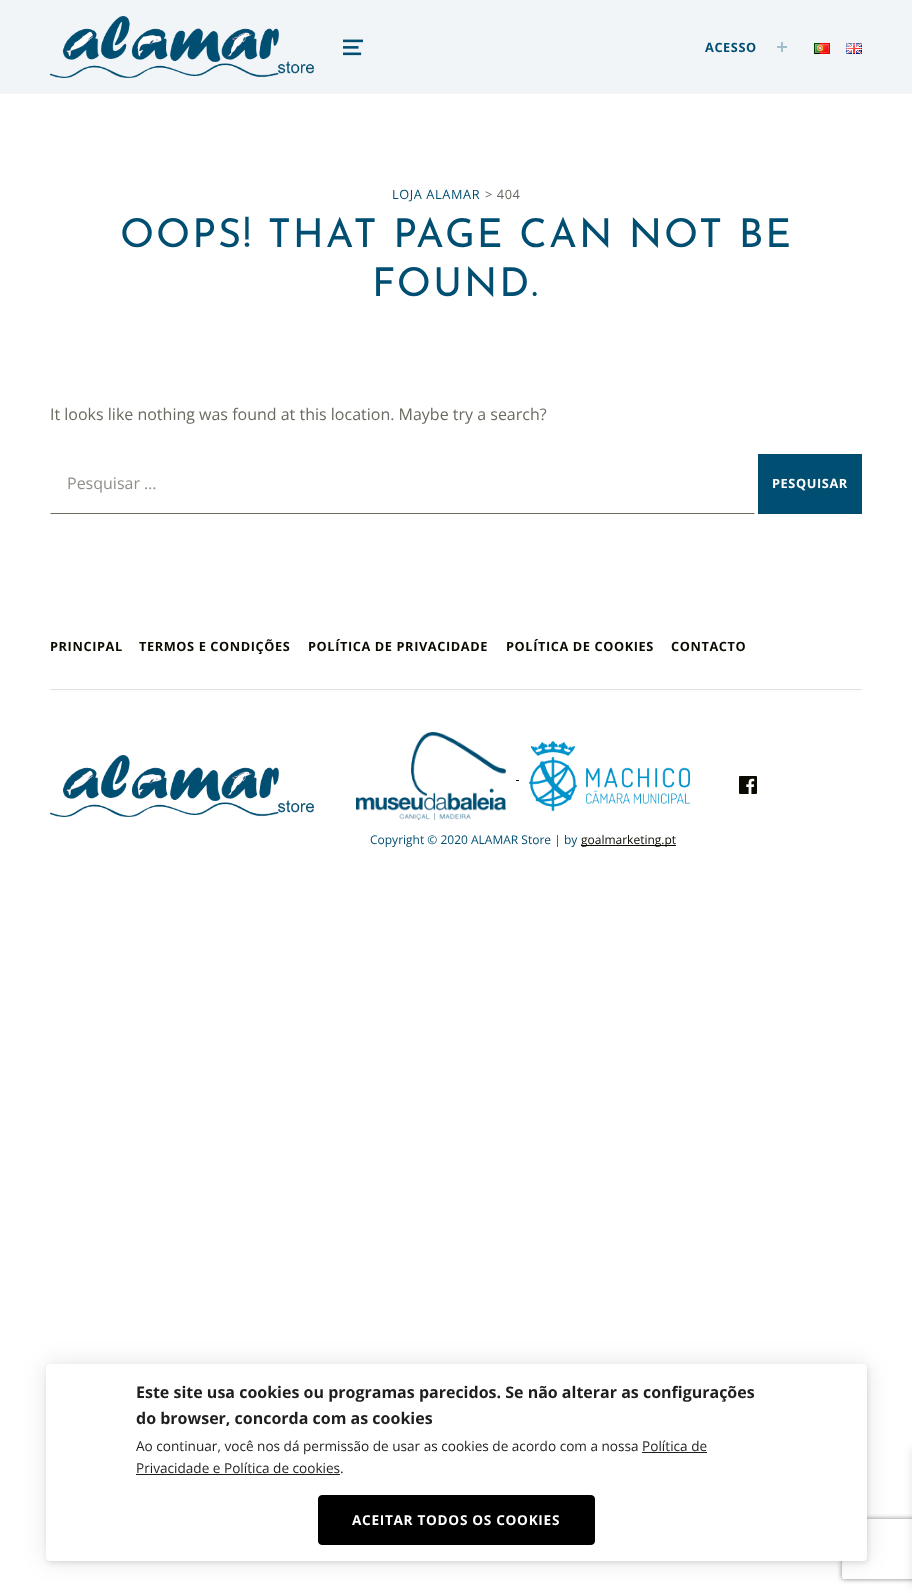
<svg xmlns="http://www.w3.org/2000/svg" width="912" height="1593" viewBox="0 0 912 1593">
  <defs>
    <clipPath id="clip1"><path d="M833 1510H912V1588H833ZM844 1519H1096C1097 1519 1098 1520 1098 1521V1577C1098 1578 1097 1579 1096 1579H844C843 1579 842 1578 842 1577V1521C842 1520 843 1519 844 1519Z" clip-rule="evenodd"/></clipPath>
  </defs>
  <rect width="100%" height="100%" fill="rgb(255,255,255)"/>
  <rect x="0" y="0" width="912" height="94" fill="rgb(242,245,248)"/>
  <image x="50" y="16" width="264" height="62" href="pic1.png"/>
  <image x="343" y="39" width="20" height="17" href="pic2.png"/>
  <text x="705" y="52" font-family="Open Sans" font-size="12.75" font-weight="bold" letter-spacing="0.6" fill="rgb(0,78,113)">ACESSO</text>
  <rect x="777" y="46" width="10" height="2" fill="rgb(162,190,203)"/>
  <rect x="781" y="42" width="2" height="10" fill="rgb(162,190,203)"/>
  <image x="814" y="43" width="16" height="11" href="pic3.png"/>
  <image x="846" y="43" width="16" height="11" href="pic4.png"/>
  <text x="392" y="199" font-family="Open Sans" font-size="12.75" letter-spacing="0.6" fill="rgb(0,78,113)">LOJA ALAMAR</text>
  <text x="485" y="199" font-family="Open Sans" font-size="12.75" letter-spacing="0.6" fill="rgb(106,106,96)">&gt; 404</text>
  <g font-family="Josefin Sans" font-size="39.8" letter-spacing="2" fill="rgb(0,78,113)">
    <text x="120" y="247">OOPS! THAT PAGE CAN NOT BE</text>
    <text x="372" y="296">FOUND.</text>
  </g>
  <text x="50" y="420" font-family="Open Sans" font-size="16" fill="rgb(106,106,96)">It looks like nothing was found at this location. Maybe try a search?</text>
  <path d="M755 514H50L51 513H754Z" fill="rgb(106,106,96)"/>
  <text x="67" y="489" font-family="Open Sans" font-size="16" fill="rgb(143,143,136)">Pesquisar …</text>
  <rect x="758" y="454" width="104" height="60" fill="rgb(0,78,113)"/>
  <text x="772" y="488" font-family="Open Sans" font-size="12.75" font-weight="bold" letter-spacing="0.6" fill="rgb(255,255,255)">PESQUISAR</text>
  <g font-family="Open Sans" font-size="12.75" font-weight="bold" letter-spacing="0.6" fill="rgb(10,10,0)">
    <text x="50" y="651">PRINCIPAL</text>
    <text x="139" y="651">TERMOS E CONDIÇÕES</text>
    <text x="308" y="651">POLÍTICA DE PRIVACIDADE</text>
    <text x="506" y="651">POLÍTICA DE COOKIES</text>
    <text x="671" y="651">CONTACTO</text>
  </g>
  <rect x="50" y="689" width="812" height="1" fill="rgb(225,225,223)"/>
  <image x="50" y="755" width="264" height="62" href="pic5.png"/>
  <image x="739" y="776" width="18" height="18" href="pic6.png"/>
  <image x="356" y="732" width="150" height="88" href="pic7.png"/>
  <rect x="516" y="780" width="3" height="1" fill="rgb(10,10,0)"/>
  <image x="529" y="741" width="161" height="70" href="pic8.png"/>
  <text x="370" y="844" font-family="Open Sans" font-size="12" fill="rgb(0,78,113)">Copyright © 2020 ALAMAR Store | by</text>
  <rect x="581" y="845" width="95" height="1" fill="rgb(10,10,0)"/>
  <text x="581" y="844" font-family="Open Sans" font-size="12" fill="rgb(10,10,0)">goalmarketing.pt</text>
  <rect x="47" y="1366" width="821" height="197" rx="4" fill="rgba(0,0,0,0.1)" filter="blur(2.5px)"/>
  <rect x="46" y="1364" width="821" height="197" rx="4" fill="rgba(0,0,0,0.1)" filter="blur(12.5px)"/>
  <g clip-path="url(#clip1)">
    <rect x="842" y="1519" width="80" height="60" rx="2" fill="rgb(128,128,128)" filter="blur(2.5px)"/>
  </g>
  <rect x="46" y="1364" width="821" height="197" rx="4" fill="rgb(255,255,255)"/>
  <g font-family="Open Sans" font-size="16" font-weight="bold" fill="rgb(30,30,30)">
    <text>
      <tspan x="136" y="1398">Este site usa cookies ou programas parecidos. Se não alterar as configurações</tspan>
      <tspan x="136" y="1424">do browser, concorda com as cookies</tspan>
    </text>
  </g>
  <g font-family="Open Sans" font-size="13.6" fill="rgb(30,30,30)">
    <text>
      <tspan x="136" y="1451">Ao continuar, você nos dá permissão de usar as cookies de acordo com a nossa Política de</tspan>
      <tspan x="136" y="1473">Privacidade e Política de cookies.</tspan>
    </text>
  </g>
  <rect x="642" y="1452" width="65" height="1" fill="rgb(30,30,30)"/>
  <rect x="136" y="1474" width="204" height="1" fill="rgb(30,30,30)"/>
  <rect x="318.5" y="1495.5" width="276" height="49" rx="3.5" fill="rgb(0,0,0)" stroke="rgb(0,0,0)"/>
  <text x="352" y="1525" font-family="Open Sans" font-size="13.6" font-weight="bold" letter-spacing="0.7" fill="rgb(255,255,255)">ACEITAR TODOS OS COOKIES</text>
  <rect x="912" y="1448" width="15" height="140" fill="rgba(0,0,0,0.1)" filter="blur(5px)"/>
</svg>
